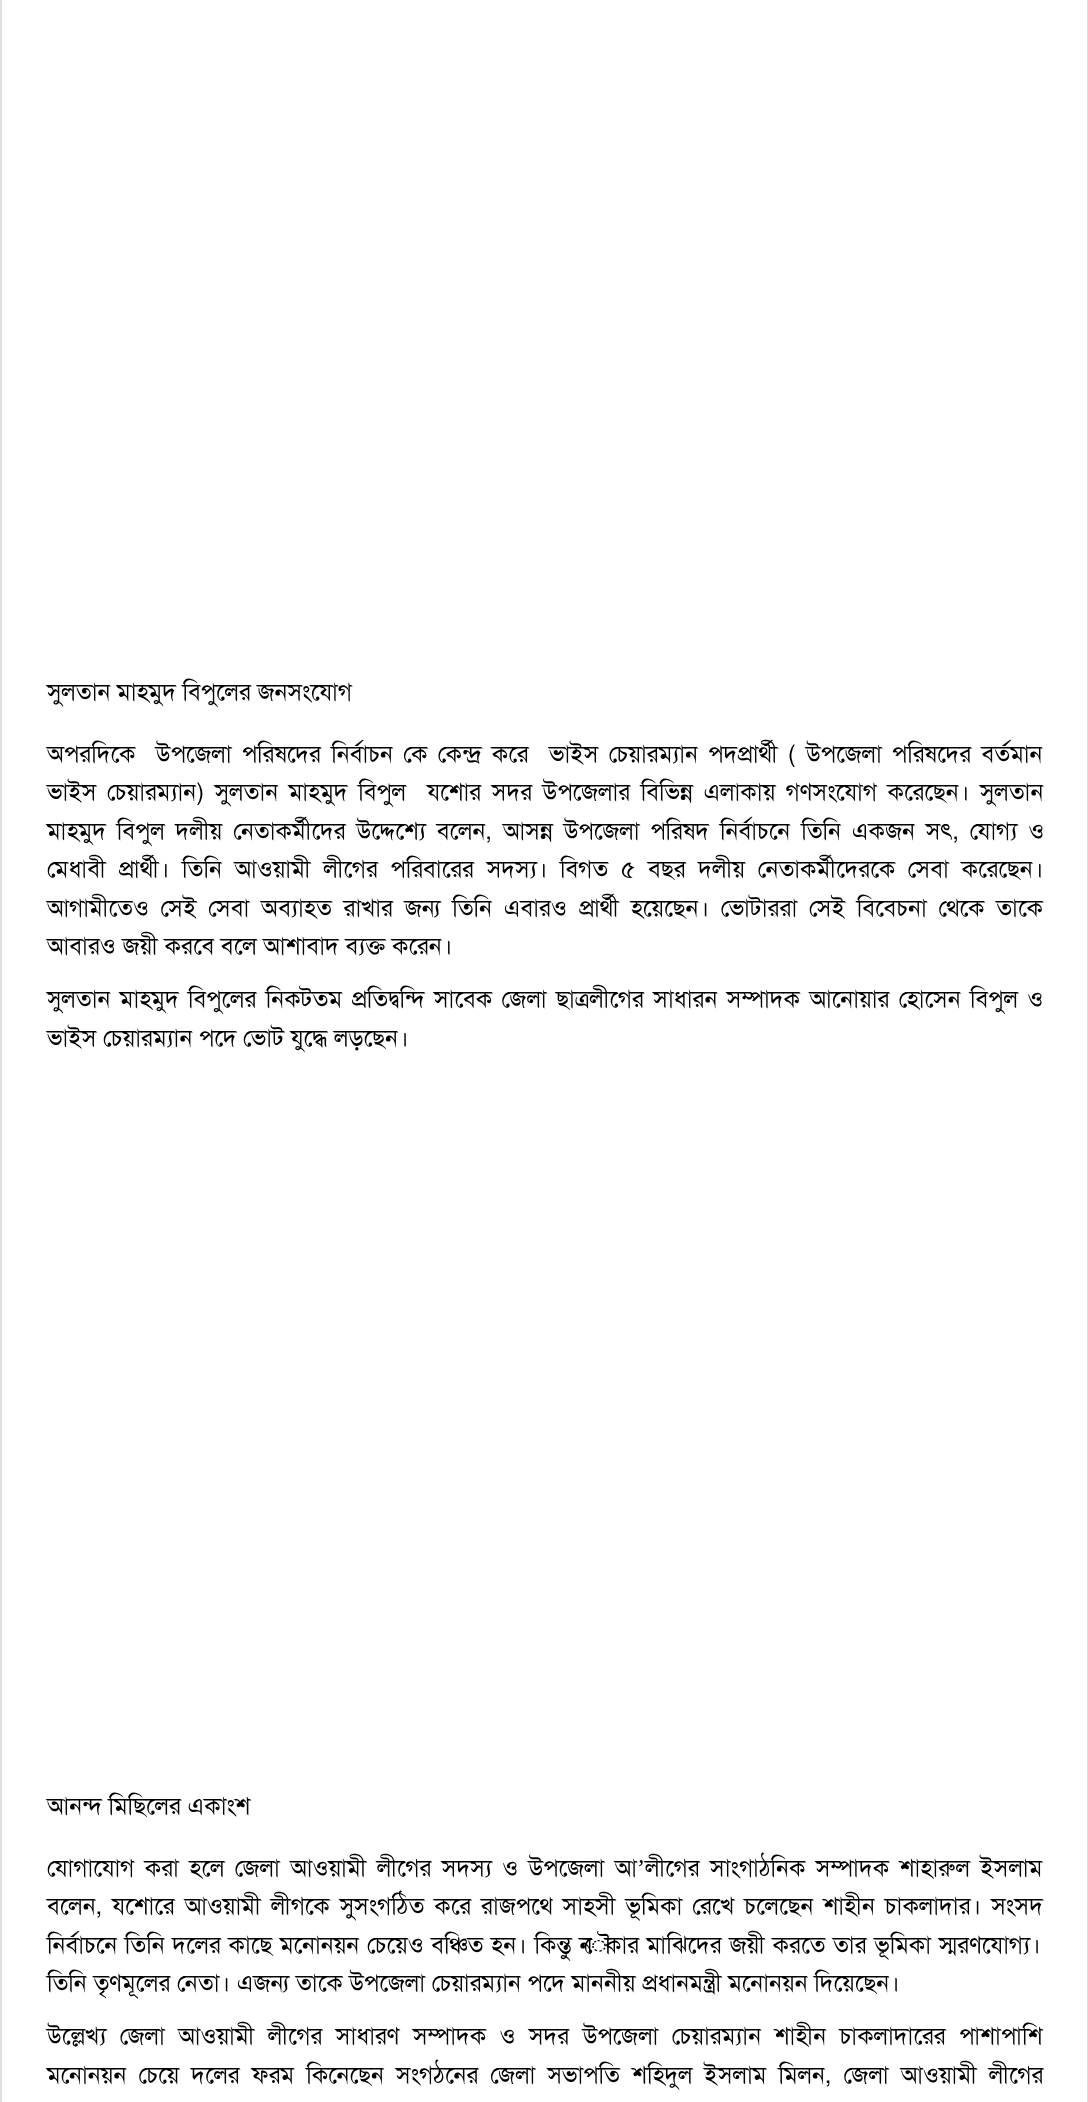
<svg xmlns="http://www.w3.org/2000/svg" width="1088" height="2102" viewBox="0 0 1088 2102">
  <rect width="100%" height="100%" fill="rgb(255,255,255)"/>
  <rect x="1" y="-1" width="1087" height="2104" fill="none" stroke="rgb(221,221,221)" stroke-width="2"/>
  <g font-family="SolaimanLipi" font-size="24" fill="rgb(0,0,0)">
    <text x="47" y="700">সুলতান মাহমুদ বিপুলের জনসংযোগ</text>
    <text xml:space="preserve"><tspan x="47" y="762" word-spacing="3.6">অপরদিকে  উপজেলা পরিষদের নির্বাচন কে কেন্দ্র করে  ভাইস চেয়ারম্যান পদপ্রার্থী ( উপজেলা পরিষদের বর্তমান</tspan><tspan x="47" y="800" word-spacing="3.9">ভাইস চেয়ারম্যান) সুলতান মাহমুদ বিপুল  যশোর সদর উপজেলার বিভিন্ন এলাকায় গণসংযোগ করেছেন। সুলতান</tspan><tspan x="47" y="839" word-spacing="4.25">মাহমুদ বিপুল দলীয় নেতাকর্মীদের উদ্দেশ্যে বলেন, আসন্ন উপজেলা পরিষদ নির্বাচনে তিনি একজন সৎ, যোগ্য ও</tspan><tspan x="47" y="877" word-spacing="6">মেধাবী প্রার্থী। তিনি আওয়ামী লীগের পরিবারের সদস্য। বিগত ৫ বছর দলীয় নেতাকর্মীদেরকে সেবা করেছেন।</tspan><tspan x="47" y="916" word-spacing="5.1">আগামীতেও সেই সেবা অব্যাহত রাখার জন্য তিনি এবারও প্রার্থী হয়েছেন। ভোটাররা সেই বিবেচনা থেকে তাকে</tspan><tspan x="47" y="954">আবারও জয়ী করবে বলে আশাবাদ ব্যক্ত করেন।</tspan></text>
    <text>
      <tspan x="47" y="1007" word-spacing="2.75">সুলতান মাহমুদ বিপুলের নিকটতম প্রতিদ্বন্দি সাবেক জেলা ছাত্রলীগের সাধারন সম্পাদক আনোয়ার হোসেন বিপুল ও</tspan>
      <tspan x="47" y="1046">ভাইস চেয়ারম্যান পদে ভোট যুদ্ধে লড়ছেন।</tspan>
    </text>
    <text x="47" y="1814">আনন্দ মিছিলের একাংশ</text>
    <text x="47" y="1876" word-spacing="3.75">যোগাযোগ করা হলে জেলা আওয়ামী লীগের সদস্য ও উপজেলা আ</text>
  </g>
  <text x="637" y="1876" font-family="Liberation Serif" font-size="24" fill="rgb(0,0,0)">’</text>
  <g font-family="SolaimanLipi" font-size="24" fill="rgb(0,0,0)">
    <text x="645" y="1876" word-spacing="3.75">লীগের সাংগাঠনিক সম্পাদক শাহারুল ইসলাম</text>
    <text>
      <tspan x="47" y="1914" word-spacing="3.25">বলেন, যশোরে আওয়ামী লীগকে সুসংগঠিত করে রাজপথে সাহসী ভূমিকা রেখে চলেছেন শাহীন চাকলাদার। সংসদ</tspan>
      <tspan x="47" y="1953" word-spacing="1">নির্বাচনে তিনি দলের কাছে মনোনয়ন চেয়েও বঞ্চিত হন। কিন্তু নৌকার মাঝিদের জয়ী করতে তার ভূমিকা স্মরণযোগ্য।</tspan>
      <tspan x="47" y="1991">তিনি তৃণমূলের নেতা। এজন্য তাকে উপজেলা চেয়ারম্যান পদে মাননীয় প্রধানমন্ত্রী মনোনয়ন দিয়েছেন।</tspan>
    </text>
    <text>
      <tspan x="47" y="2044" word-spacing="6.75">উল্লেখ্য জেলা আওয়ামী লীগের সাধারণ সম্পাদক ও সদর উপজেলা চেয়ারম্যান শাহীন চাকলাদারের পাশাপাশি</tspan>
      <tspan x="47" y="2083" word-spacing="5.4">মনোনয়ন চেয়ে দলের ফরম কিনেছেন সংগঠনের জেলা সভাপতি শহিদুল ইসলাম মিলন, জেলা আওয়ামী লীগের</tspan>
    </text>
  </g>
</svg>
